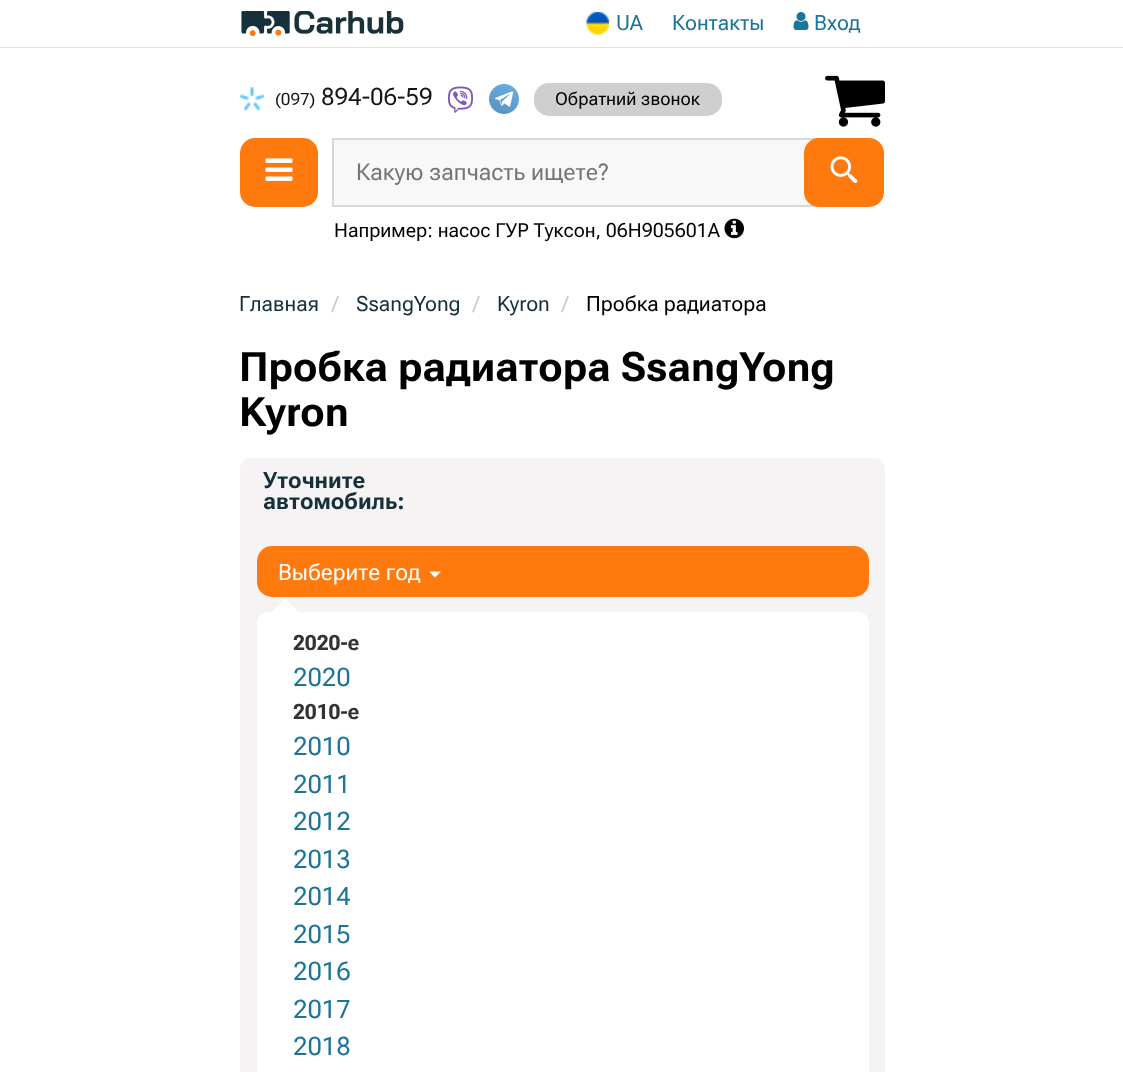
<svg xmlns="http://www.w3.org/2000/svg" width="1123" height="1072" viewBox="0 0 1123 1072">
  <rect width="100%" height="100%" fill="rgb(255,255,255)"/>
  <rect x="0" y="47" width="1123" height="1" fill="rgb(227,227,227)"/>
  <image x="586" y="12" width="23" height="23" href="pic1.png"/>
  <g font-family="Roboto Flex" font-size="21" fill="rgb(27,116,153)">
    <text x="616" y="30">UA</text>
    <text x="672" y="30">Контакты</text>
  </g>
  <image x="793" y="12" width="16" height="18" href="pic2.png"/>
  <text x="814" y="30" font-family="Roboto Flex" font-size="21" fill="rgb(27,116,153)">Вход</text>
  <image x="241" y="11" width="163" height="25" href="pic3.png"/>
  <image x="240" y="87" width="24" height="24" href="pic4.png"/>
  <text x="275" y="105" font-family="Roboto Flex" font-size="17" fill="rgb(22,22,22)">(097)</text>
  <text x="321" y="105" font-family="Roboto Flex" font-size="24" fill="rgb(22,22,22)">894-06-59</text>
  <image x="448" y="86" width="25" height="27" href="pic5.png"/>
  <image x="489" y="84" width="30" height="30" href="pic6.png"/>
  <rect x="535" y="84" width="186" height="31" rx="14" fill="rgb(207,207,207)" stroke="rgb(207,207,207)" stroke-width="2"/>
  <text x="555" y="105" font-family="Roboto Flex" font-size="18" fill="rgb(0,0,0)">Обратний звонок</text>
  <image x="825" y="75" width="60" height="52" href="pic7.png"/>
  <rect x="241" y="139" width="76" height="67" rx="14" fill="rgb(255,122,14)" stroke="rgb(255,122,14)" stroke-width="2"/>
  <image x="265" y="158" width="28" height="23" href="pic8.png"/>
  <rect x="334" y="140" width="478" height="65" fill="rgb(248,248,248)"/>
  <rect x="333" y="139" width="484" height="67" fill="none" stroke="rgb(216,216,216)" stroke-width="2"/>
  <text x="356" y="180" font-family="Roboto Flex" font-size="23.1" fill="rgb(117,117,117)">Какую запчасть ищете?</text>
  <rect x="805" y="139" width="78" height="67" rx="14" fill="rgb(255,122,14)" stroke="rgb(255,122,14)" stroke-width="2"/>
  <image x="830" y="156" width="28" height="27" href="pic9.png"/>
  <text x="334" y="237" font-family="Roboto Flex" font-size="19.5" fill="rgb(0,0,0)">Например: насос ГУР Туксон, 06H905601A</text>
  <image x="724" y="218" width="20" height="21" href="pic10.png"/>
  <text x="239" y="311" font-family="Roboto Flex" font-size="21" fill="rgb(23,49,59)">Главная</text>
  <text x="332" y="311" font-family="Roboto Flex" font-size="21" fill="rgb(204,204,204)">/</text>
  <text x="356" y="311" font-family="Roboto Flex" font-size="21" fill="rgb(23,49,59)">SsangYong</text>
  <text x="473" y="311" font-family="Roboto Flex" font-size="21" fill="rgb(204,204,204)">/</text>
  <text x="497" y="311" font-family="Roboto Flex" font-size="21" fill="rgb(23,49,59)">Kyron</text>
  <text x="562" y="311" font-family="Roboto Flex" font-size="21" fill="rgb(204,204,204)">/</text>
  <text x="586" y="311" font-family="Roboto Flex" font-size="21" fill="rgb(0,0,0)">Пробка радиатора</text>
  <g font-family="Roboto Flex" font-size="40.5" font-weight="bold" fill="rgb(0,0,0)">
    <text>
      <tspan x="239" y="381">Пробка радиатора SsangYong</tspan>
      <tspan x="239" y="426">Kyron</tspan>
    </text>
  </g>
  <rect x="240" y="458" width="645" height="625" rx="11" fill="rgb(245,243,243)"/>
  <g font-family="Roboto Flex" font-size="22.5" font-weight="bold" fill="rgb(23,49,59)">
    <text>
      <tspan x="263" y="488">Уточните</tspan>
      <tspan x="263" y="509">автомобиль:</tspan>
    </text>
  </g>
  <rect x="258" y="547" width="610" height="49" rx="14" fill="rgb(255,122,14)" stroke="rgb(255,122,14)" stroke-width="2"/>
  <text x="278" y="580" font-family="Roboto Flex" font-size="22.5" fill="rgb(255,255,255)">Выберите год</text>
  <path d="M429 571.5H441L435 577.5Z" fill="rgb(255,255,255)"/>
  <rect x="257" y="612" width="612" height="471" rx="11" fill="rgb(255,255,255)"/>
  <path d="M298.5 612H271.5L285 598.5Z" fill="rgb(255,255,255)"/>
  <text x="293" y="650" font-family="Roboto Flex" font-size="21" font-weight="bold" fill="rgb(50,51,50)">2020-е</text>
  <text x="293" y="686" font-family="Roboto Flex" font-size="25.5" fill="rgb(27,116,153)">2020</text>
  <text x="293" y="719" font-family="Roboto Flex" font-size="21" font-weight="bold" fill="rgb(50,51,50)">2010-е</text>
  <g font-family="Roboto Flex" font-size="25.5" fill="rgb(27,116,153)">
    <text>
      <tspan x="293" y="755">2010</tspan>
      <tspan x="293" y="793">2011</tspan>
      <tspan x="293" y="830">2012</tspan>
      <tspan x="293" y="868">2013</tspan>
      <tspan x="293" y="905">2014</tspan>
      <tspan x="293" y="943">2015</tspan>
      <tspan x="293" y="980">2016</tspan>
      <tspan x="293" y="1018">2017</tspan>
      <tspan x="293" y="1055">2018</tspan>
    </text>
  </g>
</svg>
